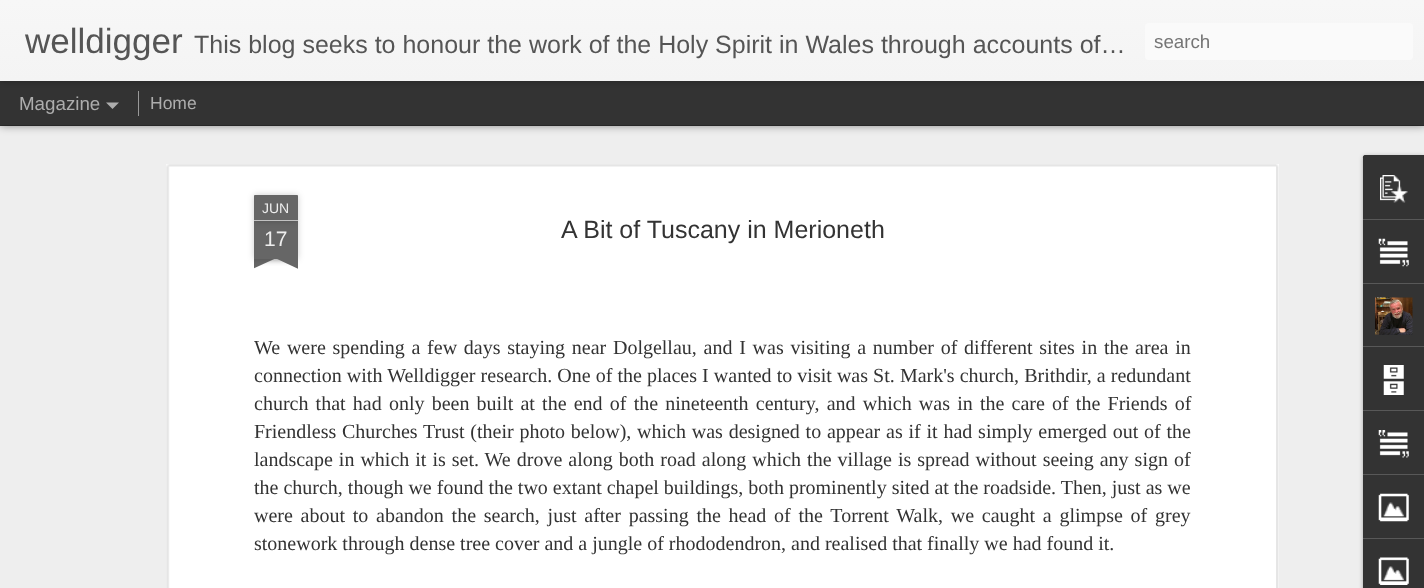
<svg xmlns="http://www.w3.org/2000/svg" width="1424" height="588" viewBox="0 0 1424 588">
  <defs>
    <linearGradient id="g1" gradientUnits="userSpaceOnUse" x1="0" y1="0" x2="0" y2="81"><stop offset="0" stop-color="rgb(247,247,247)"/><stop offset="1" stop-color="rgb(244,244,244)"/></linearGradient>
    <clipPath id="clip1"><rect x="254" y="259" width="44" height="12"/></clipPath>
    <clipPath id="clip2"><rect x="254" y="259" width="44" height="12"/></clipPath>
  </defs>
  <rect width="100%" height="100%" fill="rgb(51,51,51)"/>
  <rect x="0" y="126" width="1424" height="462" fill="rgb(238,238,238)"/>
  <rect x="0" y="81" width="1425" height="44" fill="rgba(0,0,0,0.5)" filter="blur(5px)"/>
  <rect x="0" y="81" width="1424" height="44" fill="rgb(51,51,51)"/>
  <rect x="0" y="0" width="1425" height="81" fill="rgba(0,0,0,0.3)" filter="blur(3px)"/>
  <rect x="0" y="0" width="1424" height="81" fill="url(#g1)"/>
  <text x="25" y="53" font-family="Liberation Sans" font-size="35" fill="rgb(85,85,85)">welldigger</text>
  <text x="194" y="53" font-family="Liberation Sans" font-size="25" fill="rgb(85,85,85)">This blog seeks to honour the work of the Holy Spirit in Wales through accounts of…</text>
  <rect x="1145" y="23" width="268" height="37" rx="4" fill="rgb(250,250,250)"/>
  <text x="1154" y="48" font-family="Liberation Sans" font-size="18.75" fill="rgb(117,117,117)">search</text>
  <text x="19" y="110" font-family="Liberation Sans" font-size="18.75" fill="rgb(173,173,173)">Magazine</text>
  <path d="M106 102.5H119L112.5 109Z" fill="rgb(173,173,173)"/>
  <rect x="138" y="91" width="1" height="25" fill="rgb(153,153,153)"/>
  <text x="150" y="109" font-family="Liberation Sans" font-size="17.5" fill="rgb(173,173,173)">Home</text>
  <rect x="166" y="164" width="1113" height="424" fill="rgb(255,255,255)"/>
  <image x="166" y="164" width="1113" height="424" href="pic1.png"/>
  <rect x="254" y="221" width="44" height="38" fill="rgba(0,0,0,0.2)" filter="blur(3px)"/>
  <rect x="254" y="221" width="44" height="38" fill="rgb(102,102,102)"/>
  <rect x="254" y="195" width="44" height="26" rx="1" fill="rgba(0,0,0,0.2)" filter="blur(3px)"/>
  <path d="M255 195H297C297.5 195 298 195.5 298 196V221H254V196C254 195.5 254.5 195 255 195Z" fill="rgb(102,102,102)"/>
  <rect x="254" y="220" width="44" height="1" fill="rgb(194,194,194)"/>
  <text x="262" y="213" font-family="Liberation Sans" font-size="14" fill="rgb(238,238,238)">JUN</text>
  <text x="264" y="246" font-family="Liberation Sans" font-size="21" fill="rgb(238,238,238)">17</text>
  <g clip-path="url(#clip1)">
    <rect x="243" y="246" width="62" height="13" fill="rgba(0,0,0,0.2)" filter="blur(3px)"/>
  </g>
  <g clip-path="url(#clip2)">
    <path d="M243 260L299 234L305 245L248 271Z" fill="rgb(102,102,102)"/>
  </g>
  <g clip-path="url(#clip1)">
    <rect x="246" y="246" width="63" height="13" fill="rgba(0,0,0,0.2)" filter="blur(3px)"/>
  </g>
  <g clip-path="url(#clip2)">
    <path d="M252 234L308 260L303 271L247 245Z" fill="rgb(102,102,102)"/>
  </g>
  <text x="561" y="238" font-family="Liberation Sans" font-size="25" fill="rgb(51,51,51)">A Bit of Tuscany in Merioneth</text>
  <g font-family="Liberation Serif" font-size="20" fill="rgb(51,51,51)">
    <text>
      <tspan x="254" y="354" word-spacing="1.75">We were spending a few days staying near Dolgellau, and I was visiting a number of different sites in the area in</tspan>
      <tspan x="254" y="382" word-spacing="0.1">connection with Welldigger research. One of the places I wanted to visit was St. Mark's church, Brithdir, a redundant</tspan>
      <tspan x="254" y="410" word-spacing="2.2">church that had only been built at the end of the nineteenth century, and which was in the care of the Friends of</tspan>
      <tspan x="254" y="438" word-spacing="0.8">Friendless Churches Trust (their photo below), which was designed to appear as if it had simply emerged out of the</tspan>
      <tspan x="254" y="466" word-spacing="1">landscape in which it is set. We drove along both road along which the village is spread without seeing any sign of</tspan>
      <tspan x="254" y="494">the church, though we found the two extant chapel buildings, both prominently sited at the roadside. Then, just as we</tspan>
      <tspan x="254" y="522" word-spacing="2.75">were about to abandon the search, just after passing the head of the Torrent Walk, we caught a glimpse of grey</tspan>
      <tspan x="254" y="550">stonework through dense tree cover and a jungle of rhododendron, and realised that finally we had found it.</tspan>
    </text>
  </g>
  <rect x="1363" y="156" width="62" height="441" rx="2.5" fill="rgba(0,0,0,0.3)" filter="blur(2px)"/>
  <path d="M1365.5 155H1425V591H1365.5C1364 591 1363 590 1363 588.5V157.5C1363 156 1364 155 1365.5 155Z" fill="rgb(51,51,51)"/>
  <path d="M1365.5 155H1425V219H1363V157.5C1363 156 1364 155 1365.5 155Z" fill="rgb(51,51,51)"/>
  <image x="1380" y="175" width="28" height="28" href="pic2.png"/>
  <rect x="1363" y="219" width="61" height="1" fill="rgb(88,88,88)"/>
  <image x="1378" y="238" width="31" height="29" href="pic3.png"/>
  <rect x="1363" y="283" width="61" height="1" fill="rgb(88,88,88)"/>
  <image x="1375" y="297" width="38" height="38" href="pic4.png"/>
  <rect x="1363" y="346" width="61" height="1" fill="rgb(88,88,88)"/>
  <image x="1383" y="365" width="21" height="30" href="pic5.png"/>
  <rect x="1363" y="410" width="61" height="1" fill="rgb(88,88,88)"/>
  <image x="1378" y="430" width="31" height="28" href="pic6.png"/>
  <rect x="1363" y="474" width="61" height="1" fill="rgb(88,88,88)"/>
  <image x="1378" y="493" width="31" height="29" href="pic7.png"/>
  <rect x="1363" y="538" width="61" height="1" fill="rgb(88,88,88)"/>
  <image x="1378" y="557" width="31" height="28" href="pic8.png"/>
</svg>
